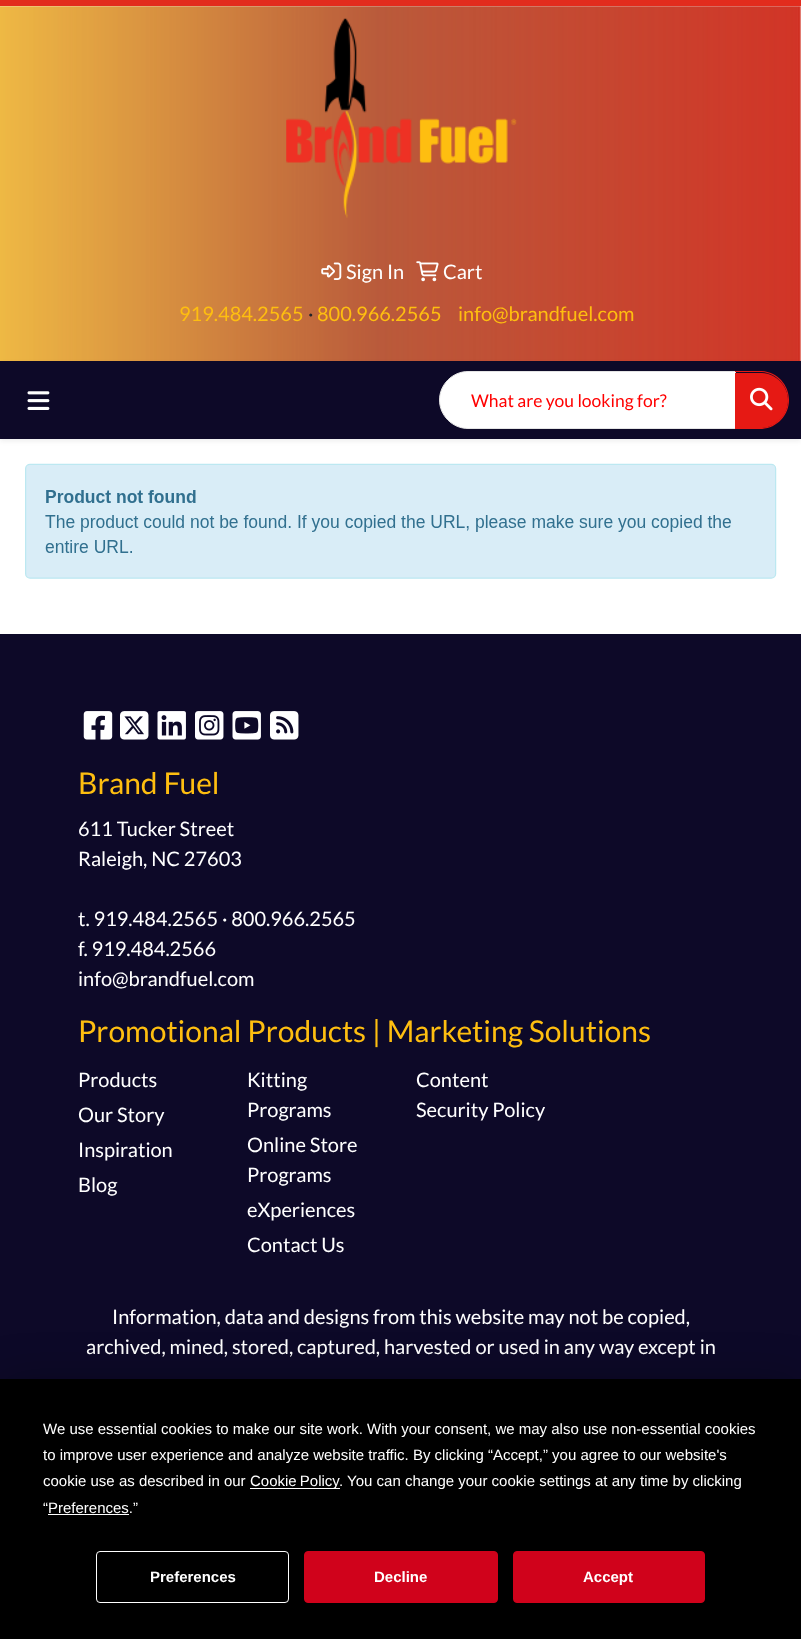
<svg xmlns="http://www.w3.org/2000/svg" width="801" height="1639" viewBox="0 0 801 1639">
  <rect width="100%" height="100%" fill="rgb(255,255,255)"/>
  <image x="0" y="6" width="801" height="355" href="pic1.png"/>
  <rect x="0" y="0" width="801" height="6" fill="rgb(226,44,29)"/>
  <image x="286" y="18" width="231" height="200" href="pic2.png"/>
  <image x="321" y="262" width="21" height="18" href="pic3.png"/>
  <text x="346" y="279" font-family="Lato" font-size="20" fill="rgb(255,255,255)">Sign In</text>
  <image x="416" y="261" width="23" height="21" href="pic4.png"/>
  <text x="443" y="279" font-family="Lato" font-size="20" fill="rgb(255,255,255)">Cart</text>
  <text x="179" y="321" font-family="Lato" font-size="20" fill="rgb(254,190,16)">919.484.2565</text>
  <text x="308" y="321" font-family="Lato" font-size="20" fill="rgb(33,37,41)">·</text>
  <g font-family="Lato" font-size="20" fill="rgb(254,190,16)">
    <text x="317" y="321">800.966.2565</text>
    <text x="458" y="321">info@brandfuel.com</text>
  </g>
  <rect x="0" y="364" width="801" height="77" fill="rgba(0,0,0,0.07)" filter="blur(2.5px)"/>
  <rect x="0" y="361" width="801" height="78" fill="rgb(13,9,40)"/>
  <image x="27" y="391" width="23" height="19" href="pic5.png"/>
  <path d="M468 371.5H735.5V428.5H468C452.5 428.5 439.5 415.5 439.5 400C439.5 384.5 452.5 371.5 468 371.5Z" fill="rgb(255,255,255)" stroke="rgb(228,228,228)"/>
  <text x="471" y="407" font-family="Lato" font-size="17.5" fill="rgb(255,0,0)">What are you looking for?</text>
  <path d="M735 373H760.5C775.5 373 788 385.5 788 400.5C788 415.5 775.5 428 760.5 428H735Z" fill="rgb(230,25,20)"/>
  <path d="M735 371H760C776 371 789 384 789 400C789 416 776 429 760 429H735ZM735 372H760C775 372 788 385 788 400C788 415 775 428 760 428H735Z" fill="rgb(230,25,20)" fill-rule="evenodd"/>
  <image x="750" y="387" width="23" height="24" href="pic6.png"/>
  <image x="25" y="463" width="752" height="116" href="pic7.png"/>
  <rect x="0" y="634" width="801" height="745" fill="rgb(13,9,40)"/>
  <image x="83" y="711" width="30" height="29" href="pic8.png"/>
  <image x="120" y="711" width="29" height="29" href="pic9.png"/>
  <image x="157" y="711" width="29" height="29" href="pic10.png"/>
  <image x="195" y="711" width="29" height="29" href="pic11.png"/>
  <image x="232" y="711" width="29" height="29" href="pic12.png"/>
  <image x="270" y="711" width="29" height="29" href="pic13.png"/>
  <text x="78" y="794" font-family="Lato" font-size="30" fill="rgb(254,190,16)">Brand Fuel</text>
  <g font-family="Lato" font-size="20" fill="rgb(255,255,255)">
    <text>
      <tspan x="78" y="836">611 Tucker Street</tspan>
      <tspan x="78" y="866">Raleigh, NC 27603</tspan>
    </text>
    <text>
      <tspan x="78" y="926">t. 919.484.2565 · 800.966.2565</tspan>
      <tspan x="78" y="956">f. 919.484.2566</tspan>
      <tspan x="78" y="986">info@brandfuel.com</tspan>
    </text>
  </g>
  <text x="78" y="1042" font-family="Lato" font-size="30" fill="rgb(254,190,16)">Promotional Products | Marketing Solutions</text>
  <g font-family="Lato" font-size="20" fill="rgb(255,255,255)">
    <text>
      <tspan x="78" y="1087">Products</tspan>
      <tspan x="78" y="1122">Our Story</tspan>
      <tspan x="78" y="1157">Inspiration</tspan>
      <tspan x="78" y="1192">Blog</tspan>
    </text>
    <text>
      <tspan x="247" y="1087">Kitting</tspan>
      <tspan x="247" y="1117">Programs</tspan>
      <tspan x="247" y="1152">Online Store</tspan>
      <tspan x="247" y="1182">Programs</tspan>
      <tspan x="247" y="1217">eXperiences</tspan>
      <tspan x="247" y="1252">Contact Us</tspan>
    </text>
    <text>
      <tspan x="416" y="1087">Content</tspan>
      <tspan x="416" y="1117">Security Policy</tspan>
    </text>
    <text x="112" y="1324">Information, data and designs from this website may not be copied,</text>
    <text x="86" y="1354">archived, mined, stored, captured, harvested or used in any way except in</text>
  </g>
  <rect x="0" y="1379" width="801" height="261" fill="rgba(0,0,0,0.25)" filter="blur(22px)"/>
  <rect x="0" y="1379" width="801" height="260" fill="rgb(0,0,0)"/>
  <g font-family="Liberation Sans" font-size="15" fill="rgb(255,255,255)">
    <text>
      <tspan x="43" y="1434">We use essential cookies to make our site work. With your consent, we may also use non-essential cookies</tspan>
      <tspan x="43" y="1460">to improve user experience and analyze website traffic. By clicking “Accept,” you agree to our website's</tspan>
      <tspan x="43" y="1486">cookie use as described in our</tspan>
    </text>
  </g>
  <rect x="250" y="1488" width="90" height="1" fill="rgb(255,255,255)"/>
  <g font-family="Liberation Sans" font-size="15" fill="rgb(255,255,255)">
    <text x="250" y="1486" word-spacing="-1">Cookie Policy</text>
    <text x="339" y="1486">. You can change your cookie settings at any time by clicking</text>
    <text x="43" y="1513">“Preferences.”</text>
  </g>
  <rect x="48" y="1514" width="81" height="1" fill="rgb(255,255,255)"/>
  <rect x="96.5" y="1551.5" width="192" height="51" rx="3.5" fill="none" stroke="rgb(255,255,255)"/>
  <text x="150" y="1582" font-family="Liberation Sans" font-size="15" font-weight="bold" fill="rgb(255,255,255)">Preferences</text>
  <rect x="304.5" y="1551.5" width="193" height="51" rx="3.5" fill="rgb(208,2,27)" stroke="rgb(208,2,27)"/>
  <text x="374" y="1582" font-family="Liberation Sans" font-size="15" font-weight="bold" fill="rgb(255,255,255)">Decline</text>
  <rect x="513.5" y="1551.5" width="191" height="51" rx="3.5" fill="rgb(208,2,27)" stroke="rgb(208,2,27)"/>
  <text x="583" y="1582" font-family="Liberation Sans" font-size="15" font-weight="bold" fill="rgb(255,255,255)">Accept</text>
</svg>
